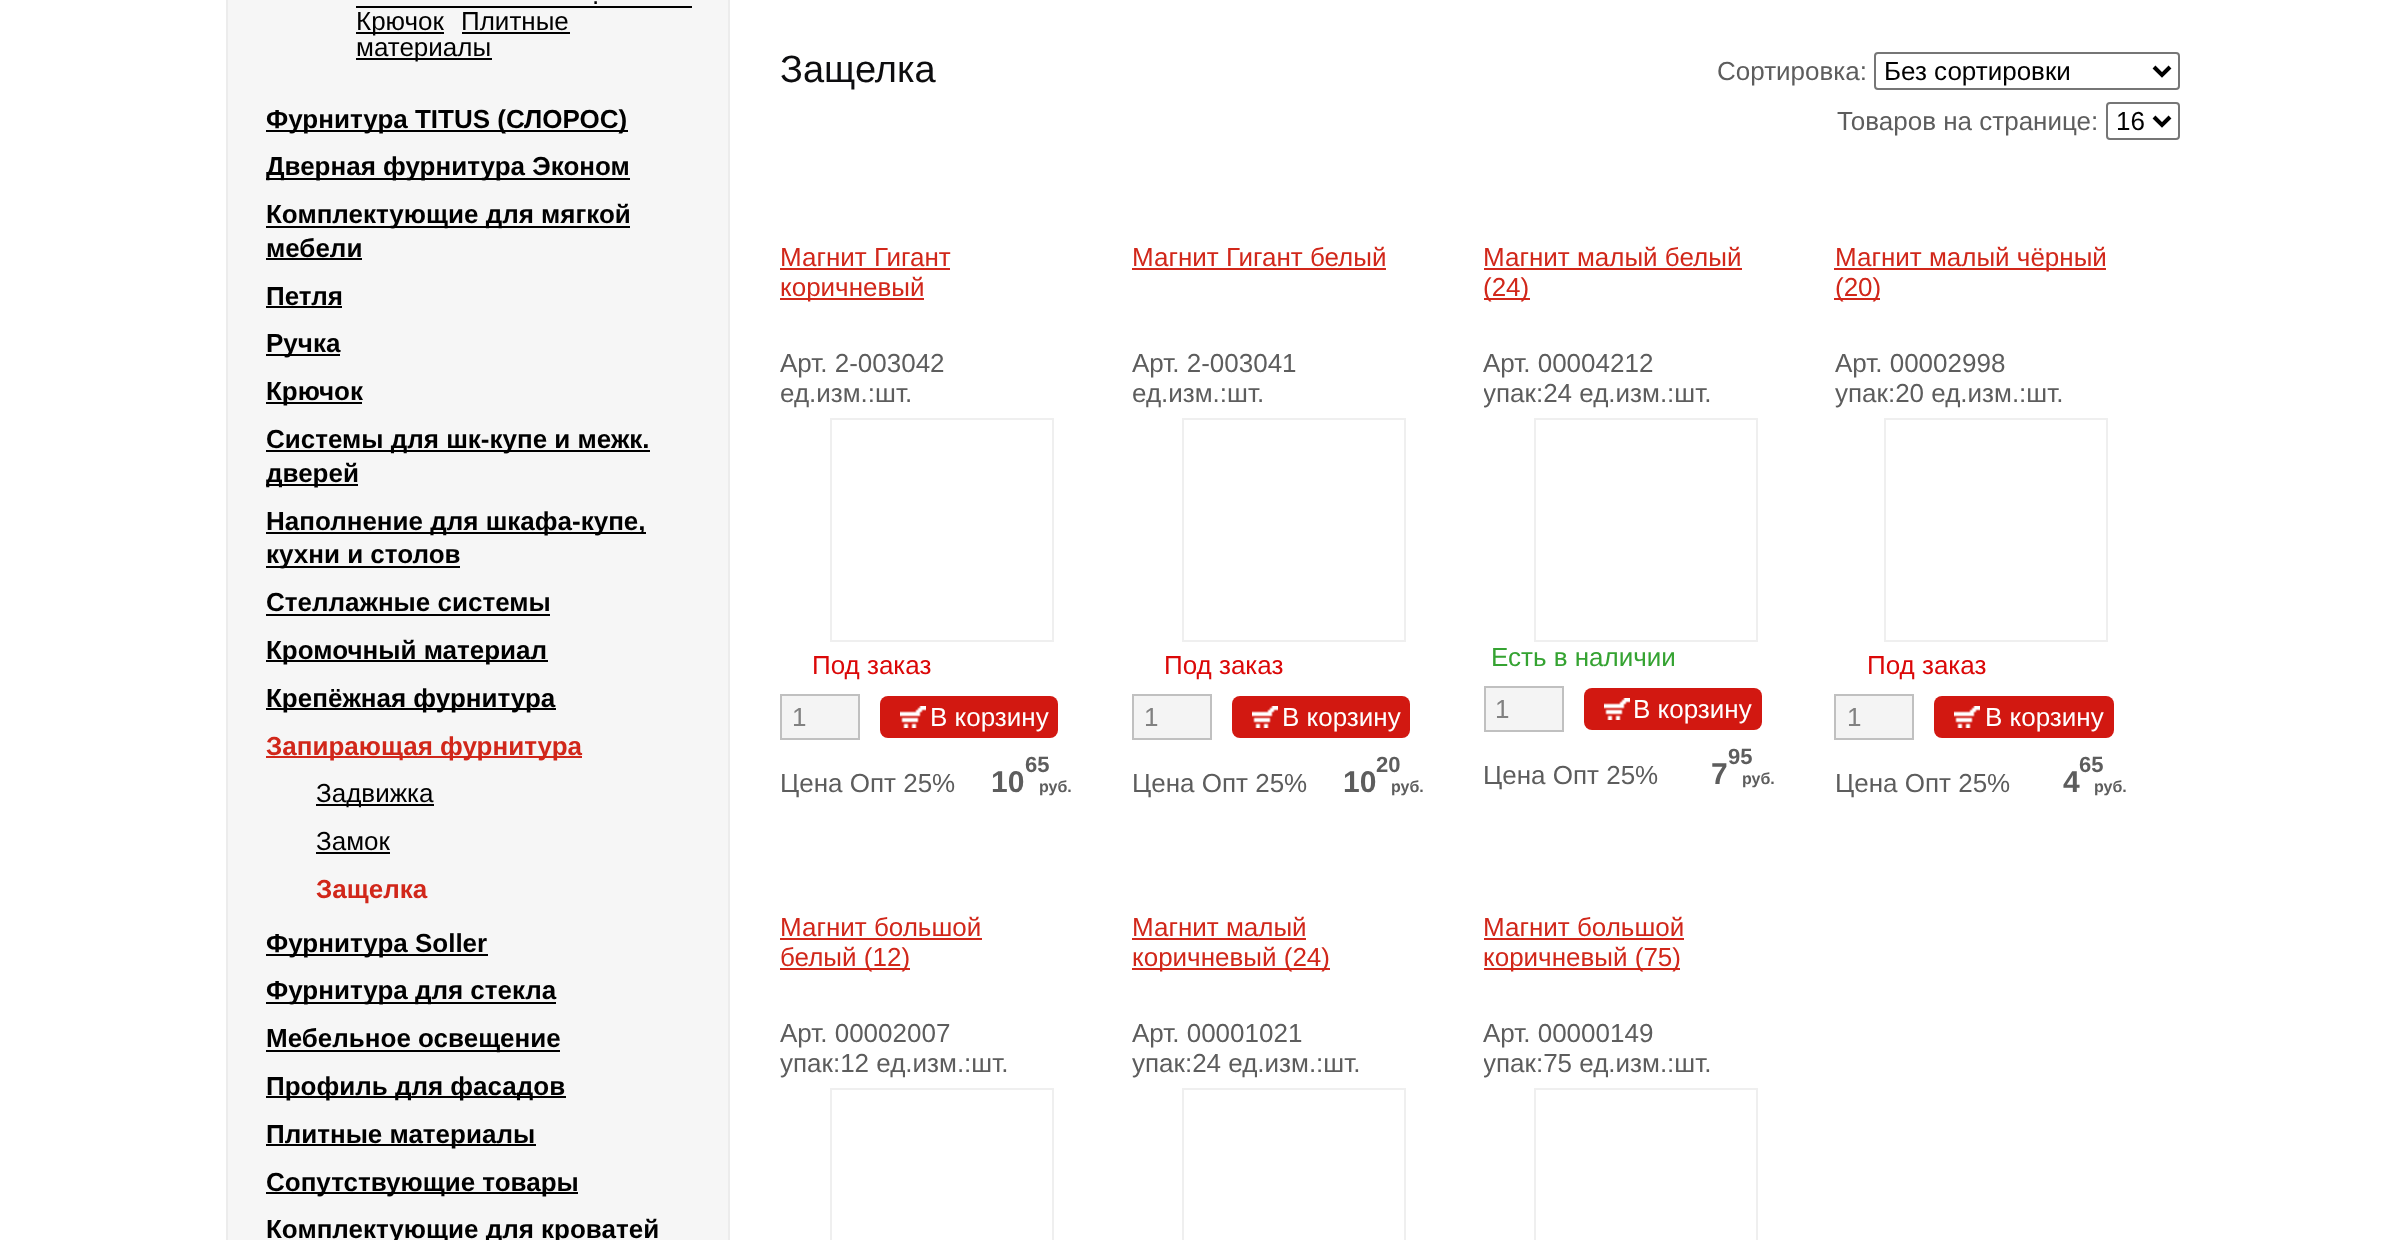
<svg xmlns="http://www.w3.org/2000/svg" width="2399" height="1240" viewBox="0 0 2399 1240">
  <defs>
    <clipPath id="clip1"><rect x="1484" y="242" width="292" height="570"/></clipPath>
    <clipPath id="clip2"><rect x="1484" y="912" width="292" height="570"/></clipPath>
  </defs>
  <rect width="100%" height="100%" fill="rgb(255,255,255)"/>
  <rect x="227" y="-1" width="502" height="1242" fill="rgb(246,246,246)" stroke="rgb(236,236,236)" stroke-width="2"/>
  <text x="592" y="4" font-family="Liberation Sans" font-size="26" fill="rgb(0,0,0)">.</text>
  <rect x="356" y="6" width="336" height="2" fill="rgb(0,0,0)"/>
  <rect x="356" y="32" width="88" height="2" fill="rgb(0,0,0)"/>
  <g font-family="Liberation Sans" font-size="26" fill="rgb(0,0,0)">
    <text x="356" y="30">Крючок</text>
    <text x="461" y="30">Плитные</text>
  </g>
  <rect x="462" y="32" width="108" height="2" fill="rgb(0,0,0)"/>
  <rect x="356" y="58" width="136" height="2" fill="rgb(0,0,0)"/>
  <text x="356" y="56" font-family="Liberation Sans" font-size="26" fill="rgb(0,0,0)">материалы</text>
  <rect x="266" y="130" width="362" height="2" fill="rgb(0,0,0)"/>
  <text x="266" y="128" font-family="Liberation Sans" font-size="26" font-weight="bold" fill="rgb(0,0,0)">Фурнитура TITUS (СЛОРОС)</text>
  <rect x="266" y="178" width="364" height="2" fill="rgb(0,0,0)"/>
  <text x="266" y="175" font-family="Liberation Sans" font-size="26" font-weight="bold" fill="rgb(0,0,0)">Дверная фурнитура Эконом</text>
  <rect x="266" y="226" width="364" height="2" fill="rgb(0,0,0)"/>
  <g font-family="Liberation Sans" font-size="26" font-weight="bold" fill="rgb(0,0,0)">
    <text>
      <tspan x="266" y="223">Комплектующие для мягкой</tspan>
      <tspan x="266" y="257">мебели</tspan>
    </text>
  </g>
  <rect x="266" y="258" width="96" height="2" fill="rgb(0,0,0)"/>
  <text x="266" y="305" font-family="Liberation Sans" font-size="26" font-weight="bold" fill="rgb(0,0,0)">Петля</text>
  <rect x="266" y="306" width="76" height="2" fill="rgb(0,0,0)"/>
  <rect x="266" y="354" width="74" height="2" fill="rgb(0,0,0)"/>
  <text x="266" y="352" font-family="Liberation Sans" font-size="26" font-weight="bold" fill="rgb(0,0,0)">Ручка</text>
  <rect x="266" y="402" width="96" height="2" fill="rgb(0,0,0)"/>
  <text x="266" y="400" font-family="Liberation Sans" font-size="26" font-weight="bold" fill="rgb(0,0,0)">Крючок</text>
  <rect x="266" y="450" width="384" height="2" fill="rgb(0,0,0)"/>
  <text x="266" y="448" font-family="Liberation Sans" font-size="26" font-weight="bold" fill="rgb(0,0,0)">Системы для шк-купе и межк.</text>
  <rect x="266" y="484" width="92" height="2" fill="rgb(0,0,0)"/>
  <text x="266" y="482" font-family="Liberation Sans" font-size="26" font-weight="bold" fill="rgb(0,0,0)">дверей</text>
  <rect x="266" y="532" width="380" height="2" fill="rgb(0,0,0)"/>
  <text x="266" y="530" font-family="Liberation Sans" font-size="26" font-weight="bold" fill="rgb(0,0,0)">Наполнение для шкафа-купе,</text>
  <rect x="266" y="566" width="194" height="2" fill="rgb(0,0,0)"/>
  <g font-family="Liberation Sans" font-size="26" font-weight="bold" fill="rgb(0,0,0)">
    <text>
      <tspan x="266" y="563">кухни и столов</tspan>
      <tspan x="266" y="611">Стеллажные системы</tspan>
    </text>
  </g>
  <rect x="266" y="614" width="284" height="2" fill="rgb(0,0,0)"/>
  <rect x="266" y="660" width="282" height="2" fill="rgb(0,0,0)"/>
  <text x="266" y="659" font-family="Liberation Sans" font-size="26" font-weight="bold" fill="rgb(0,0,0)">Кромочный материал</text>
  <rect x="266" y="708" width="290" height="2" fill="rgb(0,0,0)"/>
  <text x="266" y="707" font-family="Liberation Sans" font-size="26" font-weight="bold" fill="rgb(0,0,0)">Крепёжная фурнитура</text>
  <rect x="266" y="756" width="316" height="2" fill="rgb(209,39,26)"/>
  <text x="266" y="755" font-family="Liberation Sans" font-size="26" font-weight="bold" fill="rgb(209,39,26)">Запирающая фурнитура</text>
  <rect x="316" y="804" width="118" height="2" fill="rgb(0,0,0)"/>
  <g font-family="Liberation Sans" font-size="26" fill="rgb(0,0,0)">
    <text>
      <tspan x="316" y="802">Задвижка</tspan>
      <tspan x="316" y="850">Замок</tspan>
    </text>
  </g>
  <rect x="316" y="852" width="74" height="2" fill="rgb(0,0,0)"/>
  <text x="316" y="898" font-family="Liberation Sans" font-size="26" font-weight="bold" fill="rgb(209,39,26)">Защелка</text>
  <rect x="266" y="954" width="222" height="2" fill="rgb(0,0,0)"/>
  <text x="266" y="952" font-family="Liberation Sans" font-size="26" font-weight="bold" fill="rgb(0,0,0)">Фурнитура Soller</text>
  <rect x="266" y="1002" width="290" height="2" fill="rgb(0,0,0)"/>
  <text x="266" y="999" font-family="Liberation Sans" font-size="26" font-weight="bold" fill="rgb(0,0,0)">Фурнитура для стекла</text>
  <rect x="266" y="1050" width="294" height="2" fill="rgb(0,0,0)"/>
  <text x="266" y="1047" font-family="Liberation Sans" font-size="26" font-weight="bold" fill="rgb(0,0,0)">Мебельное освещение</text>
  <rect x="266" y="1096" width="300" height="2" fill="rgb(0,0,0)"/>
  <text x="266" y="1095" font-family="Liberation Sans" font-size="26" font-weight="bold" fill="rgb(0,0,0)">Профиль для фасадов</text>
  <rect x="266" y="1144" width="270" height="2" fill="rgb(0,0,0)"/>
  <text x="266" y="1143" font-family="Liberation Sans" font-size="26" font-weight="bold" fill="rgb(0,0,0)">Плитные материалы</text>
  <rect x="266" y="1192" width="312" height="2" fill="rgb(0,0,0)"/>
  <g font-family="Liberation Sans" font-size="26" font-weight="bold" fill="rgb(0,0,0)">
    <text>
      <tspan x="266" y="1191">Сопутствующие товары</tspan>
      <tspan x="266" y="1238">Комплектующие для кроватей</tspan>
    </text>
  </g>
  <text x="780" y="82" font-family="Liberation Sans" font-size="38" fill="rgb(13,13,15)">Защелка</text>
  <text x="1717" y="80" font-family="Liberation Sans" font-size="26" fill="rgb(93,93,93)">Сортировка:</text>
  <rect x="1875" y="53" width="304" height="36" rx="3" fill="none" stroke="rgb(118,118,118)" stroke-width="2"/>
  <path d="M2154 67L2162 75L2170 67" fill="none" stroke="rgb(0,0,0)" stroke-width="4"/>
  <text x="1884" y="80" font-family="Liberation Sans" font-size="26" fill="rgb(0,0,0)">Без сортировки</text>
  <text x="1837" y="130" font-family="Liberation Sans" font-size="26" fill="rgb(93,93,93)">Товаров на странице:</text>
  <rect x="2107" y="103" width="72" height="36" rx="3" fill="none" stroke="rgb(118,118,118)" stroke-width="2"/>
  <path d="M2154 117L2162 125L2170 117" fill="none" stroke="rgb(0,0,0)" stroke-width="4"/>
  <text x="2116" y="130" font-family="Liberation Sans" font-size="26" fill="rgb(0,0,0)">16</text>
  <text x="780" y="266" font-family="Liberation Sans" font-size="26" fill="rgb(209,39,26)">Магнит Гигант</text>
  <rect x="780" y="268" width="170" height="2" fill="rgb(209,39,26)"/>
  <rect x="780" y="298" width="144" height="2" fill="rgb(209,39,26)"/>
  <text x="780" y="296" font-family="Liberation Sans" font-size="26" fill="rgb(209,39,26)">коричневый</text>
  <g font-family="Liberation Sans" font-size="26" fill="rgb(93,93,93)">
    <text>
      <tspan x="780" y="372">Арт. 2-003042</tspan>
      <tspan x="780" y="402">ед.изм.:шт.</tspan>
    </text>
  </g>
  <rect x="831" y="419" width="222" height="222" fill="none" stroke="rgb(239,239,239)" stroke-width="2"/>
  <text x="812" y="674" font-family="Liberation Sans" font-size="26" fill="rgb(219,8,8)">Под заказ</text>
  <rect x="781" y="695" width="78" height="44" fill="rgb(244,244,244)" stroke="rgb(192,192,192)" stroke-width="2"/>
  <text x="792" y="726" font-family="Liberation Sans" font-size="26" fill="rgb(129,129,129)">1</text>
  <rect x="880" y="696" width="178" height="42" rx="8" fill="rgb(210,24,17)"/>
  <image x="900" y="706" width="26" height="22" href="pic1.png"/>
  <text x="930" y="726" font-family="Liberation Sans" font-size="26" fill="rgb(255,255,255)">В корзину</text>
  <text x="780" y="792" font-family="Liberation Sans" font-size="26" fill="rgb(93,93,93)">Цена Опт 25%</text>
  <text x="1025" y="772" font-family="Liberation Sans" font-size="22" font-weight="bold" fill="rgb(93,93,93)">65</text>
  <text x="991" y="792" font-family="Liberation Sans" font-size="30" font-weight="bold" fill="rgb(93,93,93)">10</text>
  <text x="1039" y="792" font-family="Liberation Sans" font-size="16" font-weight="bold" fill="rgb(93,93,93)">руб.</text>
  <text x="1132" y="266" font-family="Liberation Sans" font-size="26" fill="rgb(209,39,26)">Магнит Гигант белый</text>
  <rect x="1132" y="268" width="254" height="2" fill="rgb(209,39,26)"/>
  <g font-family="Liberation Sans" font-size="26" fill="rgb(93,93,93)">
    <text>
      <tspan x="1132" y="372">Арт. 2-003041</tspan>
      <tspan x="1132" y="402">ед.изм.:шт.</tspan>
    </text>
  </g>
  <rect x="1183" y="419" width="222" height="222" fill="none" stroke="rgb(239,239,239)" stroke-width="2"/>
  <text x="1164" y="674" font-family="Liberation Sans" font-size="26" fill="rgb(219,8,8)">Под заказ</text>
  <rect x="1133" y="695" width="78" height="44" fill="rgb(244,244,244)" stroke="rgb(192,192,192)" stroke-width="2"/>
  <text x="1144" y="726" font-family="Liberation Sans" font-size="26" fill="rgb(129,129,129)">1</text>
  <rect x="1232" y="696" width="178" height="42" rx="8" fill="rgb(210,24,17)"/>
  <image x="1252" y="706" width="26" height="22" href="pic1.png"/>
  <text x="1282" y="726" font-family="Liberation Sans" font-size="26" fill="rgb(255,255,255)">В корзину</text>
  <text x="1132" y="792" font-family="Liberation Sans" font-size="26" fill="rgb(93,93,93)">Цена Опт 25%</text>
  <text x="1376" y="772" font-family="Liberation Sans" font-size="22" font-weight="bold" fill="rgb(93,93,93)">20</text>
  <text x="1343" y="792" font-family="Liberation Sans" font-size="30" font-weight="bold" fill="rgb(93,93,93)">10</text>
  <text x="1391" y="792" font-family="Liberation Sans" font-size="16" font-weight="bold" fill="rgb(93,93,93)">руб.</text>
  <text x="1483" y="266" font-family="Liberation Sans" font-size="26" fill="rgb(209,39,26)">Магнит малый белый</text>
  <rect x="1484" y="268" width="258" height="2" fill="rgb(209,39,26)"/>
  <rect x="1484" y="298" width="46" height="2" fill="rgb(209,39,26)"/>
  <text x="1483" y="296" font-family="Liberation Sans" font-size="26" fill="rgb(209,39,26)">(24)</text>
  <text x="1483" y="372" font-family="Liberation Sans" font-size="26" fill="rgb(93,93,93)">Арт. 00004212</text>
  <g clip-path="url(#clip1)">
    <text x="1483" y="402" font-family="Liberation Sans" font-size="26" fill="rgb(93,93,93)">упак:24 ед.изм.:шт.</text>
  </g>
  <rect x="1535" y="419" width="222" height="222" fill="none" stroke="rgb(239,239,239)" stroke-width="2"/>
  <text x="1491" y="666" font-family="Liberation Sans" font-size="26" fill="rgb(53,163,50)">Есть в наличии</text>
  <rect x="1485" y="687" width="78" height="44" fill="rgb(244,244,244)" stroke="rgb(192,192,192)" stroke-width="2"/>
  <text x="1495" y="718" font-family="Liberation Sans" font-size="26" fill="rgb(129,129,129)">1</text>
  <rect x="1584" y="688" width="178" height="42" rx="8" fill="rgb(210,24,17)"/>
  <image x="1604" y="698" width="26" height="22" href="pic1.png"/>
  <text x="1633" y="718" font-family="Liberation Sans" font-size="26" fill="rgb(255,255,255)">В корзину</text>
  <text x="1483" y="784" font-family="Liberation Sans" font-size="26" fill="rgb(93,93,93)">Цена Опт 25%</text>
  <text x="1728" y="764" font-family="Liberation Sans" font-size="22" font-weight="bold" fill="rgb(93,93,93)">95</text>
  <text x="1711" y="784" font-family="Liberation Sans" font-size="30" font-weight="bold" fill="rgb(93,93,93)">7</text>
  <text x="1742" y="784" font-family="Liberation Sans" font-size="16" font-weight="bold" fill="rgb(93,93,93)">руб.</text>
  <rect x="1834" y="268" width="272" height="2" fill="rgb(209,39,26)"/>
  <text x="1835" y="266" font-family="Liberation Sans" font-size="26" fill="rgb(209,39,26)">Магнит малый чёрный</text>
  <rect x="1834" y="298" width="46" height="2" fill="rgb(209,39,26)"/>
  <text x="1835" y="296" font-family="Liberation Sans" font-size="26" fill="rgb(209,39,26)">(20)</text>
  <g font-family="Liberation Sans" font-size="26" fill="rgb(93,93,93)">
    <text>
      <tspan x="1835" y="372">Арт. 00002998</tspan>
      <tspan x="1835" y="402">упак:20 ед.изм.:шт.</tspan>
    </text>
  </g>
  <rect x="1885" y="419" width="222" height="222" fill="none" stroke="rgb(239,239,239)" stroke-width="2"/>
  <text x="1867" y="674" font-family="Liberation Sans" font-size="26" fill="rgb(219,8,8)">Под заказ</text>
  <rect x="1835" y="695" width="78" height="44" fill="rgb(244,244,244)" stroke="rgb(192,192,192)" stroke-width="2"/>
  <text x="1847" y="726" font-family="Liberation Sans" font-size="26" fill="rgb(129,129,129)">1</text>
  <rect x="1934" y="696" width="180" height="42" rx="8" fill="rgb(210,24,17)"/>
  <image x="1954" y="706" width="26" height="22" href="pic1.png"/>
  <text x="1985" y="726" font-family="Liberation Sans" font-size="26" fill="rgb(255,255,255)">В корзину</text>
  <text x="1835" y="792" font-family="Liberation Sans" font-size="26" fill="rgb(93,93,93)">Цена Опт 25%</text>
  <text x="2079" y="772" font-family="Liberation Sans" font-size="22" font-weight="bold" fill="rgb(93,93,93)">65</text>
  <text x="2063" y="792" font-family="Liberation Sans" font-size="30" font-weight="bold" fill="rgb(93,93,93)">4</text>
  <text x="2094" y="792" font-family="Liberation Sans" font-size="16" font-weight="bold" fill="rgb(93,93,93)">руб.</text>
  <text x="780" y="936" font-family="Liberation Sans" font-size="26" fill="rgb(209,39,26)">Магнит большой</text>
  <rect x="780" y="938" width="202" height="2" fill="rgb(209,39,26)"/>
  <rect x="780" y="968" width="130" height="2" fill="rgb(209,39,26)"/>
  <text x="780" y="966" font-family="Liberation Sans" font-size="26" fill="rgb(209,39,26)">белый (12)</text>
  <g font-family="Liberation Sans" font-size="26" fill="rgb(93,93,93)">
    <text>
      <tspan x="780" y="1042">Арт. 00002007</tspan>
      <tspan x="780" y="1072">упак:12 ед.изм.:шт.</tspan>
    </text>
  </g>
  <rect x="831" y="1089" width="222" height="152" fill="none" stroke="rgb(239,239,239)" stroke-width="2"/>
  <text x="1132" y="936" font-family="Liberation Sans" font-size="26" fill="rgb(209,39,26)">Магнит малый</text>
  <rect x="1132" y="938" width="174" height="2" fill="rgb(209,39,26)"/>
  <rect x="1132" y="968" width="198" height="2" fill="rgb(209,39,26)"/>
  <text x="1132" y="966" font-family="Liberation Sans" font-size="26" fill="rgb(209,39,26)">коричневый (24)</text>
  <g font-family="Liberation Sans" font-size="26" fill="rgb(93,93,93)">
    <text>
      <tspan x="1132" y="1042">Арт. 00001021</tspan>
      <tspan x="1132" y="1072">упак:24 ед.изм.:шт.</tspan>
    </text>
  </g>
  <rect x="1183" y="1089" width="222" height="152" fill="none" stroke="rgb(239,239,239)" stroke-width="2"/>
  <text x="1483" y="936" font-family="Liberation Sans" font-size="26" fill="rgb(209,39,26)">Магнит большой</text>
  <rect x="1484" y="938" width="200" height="2" fill="rgb(209,39,26)"/>
  <rect x="1484" y="968" width="196" height="2" fill="rgb(209,39,26)"/>
  <text x="1483" y="966" font-family="Liberation Sans" font-size="26" fill="rgb(209,39,26)">коричневый (75)</text>
  <text x="1483" y="1042" font-family="Liberation Sans" font-size="26" fill="rgb(93,93,93)">Арт. 00000149</text>
  <g clip-path="url(#clip2)">
    <text x="1483" y="1072" font-family="Liberation Sans" font-size="26" fill="rgb(93,93,93)">упак:75 ед.изм.:шт.</text>
  </g>
  <rect x="1535" y="1089" width="222" height="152" fill="none" stroke="rgb(239,239,239)" stroke-width="2"/>
</svg>
